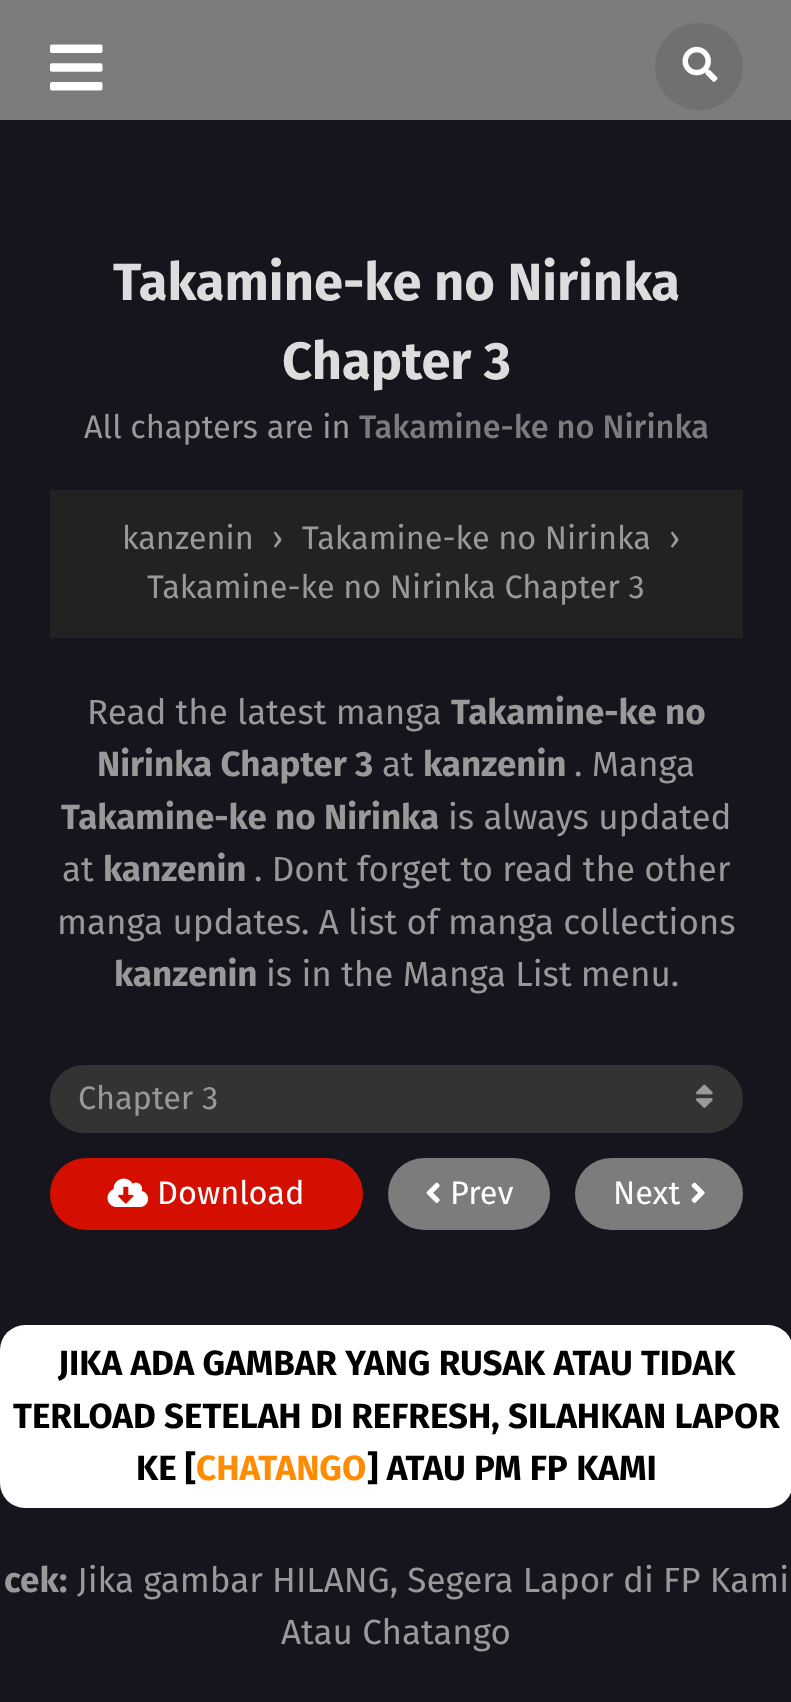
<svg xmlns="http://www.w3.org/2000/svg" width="791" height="1702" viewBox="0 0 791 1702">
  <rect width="100%" height="100%" fill="rgb(22,21,29)"/>
  <rect x="0" y="0" width="791" height="120" fill="rgb(124,124,124)"/>
  <image x="50" y="44" width="53" height="47" href="pic1.png"/>
  <rect x="655" y="23" width="88" height="87" rx="43.5" fill="rgb(112,112,112)"/>
  <image x="682" y="46" width="36" height="36" href="pic2.png"/>
  <g font-family="Fira Sans" font-size="52.5" font-weight="bold" fill="rgb(221,221,221)">
    <text x="113" y="300">Takamine-ke no Nirinka</text>
    <text x="282" y="379">Chapter 3</text>
  </g>
  <text x="84" y="438" font-family="Fira Sans" font-size="32.5" fill="rgb(153,153,153)">All chapters are in</text>
  <text x="359" y="438" font-family="Fira Sans" font-size="32.5" font-weight="500" fill="rgb(124,124,124)">Takamine-ke no Nirinka</text>
  <rect x="50" y="490" width="693" height="148" fill="rgb(34,34,34)"/>
  <g font-family="Fira Sans" font-size="32.5" fill="rgb(153,153,153)">
    <text x="122" y="549">kanzenin</text>
    <text x="272" y="549">›</text>
    <text x="302" y="549">Takamine-ke no Nirinka</text>
    <text x="669" y="549">›</text>
    <text x="147" y="598">Takamine-ke no Nirinka Chapter 3</text>
  </g>
  <text x="87" y="724" font-family="Fira Sans" font-size="35" fill="rgb(153,153,153)">Read the latest manga</text>
  <g font-family="Fira Sans" font-size="35" font-weight="bold" fill="rgb(153,153,153)">
    <text x="451" y="724">Takamine-ke no</text>
    <text x="97" y="776">Nirinka Chapter 3</text>
  </g>
  <text x="382" y="776" font-family="Fira Sans" font-size="35" fill="rgb(153,153,153)">at</text>
  <text x="423" y="776" font-family="Fira Sans" font-size="35" font-weight="bold" fill="rgb(153,153,153)">kanzenin</text>
  <text x="574" y="776" font-family="Fira Sans" font-size="35" fill="rgb(153,153,153)">. Manga</text>
  <text x="61" y="829" font-family="Fira Sans" font-size="35" font-weight="bold" fill="rgb(153,153,153)">Takamine-ke no Nirinka</text>
  <g font-family="Fira Sans" font-size="35" fill="rgb(153,153,153)">
    <text x="448" y="829">is always updated</text>
    <text x="62" y="881">at</text>
  </g>
  <text x="103" y="881" font-family="Fira Sans" font-size="35" font-weight="bold" fill="rgb(153,153,153)">kanzenin</text>
  <g font-family="Fira Sans" font-size="35" fill="rgb(153,153,153)">
    <text x="254" y="881">. Dont forget to read the other</text>
    <text x="57" y="934">manga updates. A list of manga collections</text>
  </g>
  <text x="114" y="986" font-family="Fira Sans" font-size="35" font-weight="bold" fill="rgb(153,153,153)">kanzenin</text>
  <text x="266" y="986" font-family="Fira Sans" font-size="35" fill="rgb(153,153,153)">is in the Manga List menu.</text>
  <rect x="51.5" y="1066.5" width="690" height="65" rx="32.5" fill="rgb(51,51,51)" stroke="rgb(51,51,51)" stroke-width="3"/>
  <text x="78" y="1109" font-family="Fira Sans" font-size="32.5" fill="rgb(153,153,153)">Chapter 3</text>
  <image x="696" y="1084" width="17" height="24" href="pic3.png"/>
  <rect x="50" y="1158" width="313" height="72" rx="36" fill="rgb(213,15,0)"/>
  <image x="107" y="1178" width="42" height="29" href="pic4.png"/>
  <text x="157" y="1204" font-family="Fira Sans" font-size="32.5" fill="rgb(255,255,255)">Download</text>
  <rect x="388" y="1158" width="162" height="72" rx="36" fill="rgb(124,124,124)"/>
  <image x="426" y="1182" width="14" height="21" href="pic5.png"/>
  <text x="450" y="1204" font-family="Fira Sans" font-size="32.5" fill="rgb(255,255,255)">Prev</text>
  <rect x="575" y="1158" width="168" height="72" rx="36" fill="rgb(124,124,124)"/>
  <text x="613" y="1204" font-family="Fira Sans" font-size="32.5" fill="rgb(255,255,255)">Next</text>
  <image x="691" y="1182" width="14" height="21" href="pic6.png"/>
  <rect x="0" y="1325" width="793" height="183" rx="25" fill="rgb(255,255,255)"/>
  <g font-family="Fira Sans" font-size="35" font-weight="bold" fill="rgb(0,0,0)">
    <text x="58" y="1375">JIKA ADA GAMBAR YANG RUSAK ATAU TIDAK</text>
    <text x="13" y="1428">TERLOAD SETELAH DI REFRESH, SILAHKAN LAPOR</text>
    <text x="136" y="1480">KE [</text>
  </g>
  <text x="196" y="1480" font-family="Fira Sans" font-size="35" font-weight="bold" fill="rgb(255,140,0)">CHATANGO</text>
  <text x="367" y="1480" font-family="Fira Sans" font-size="35" font-weight="bold" fill="rgb(0,0,0)">] ATAU PM FP KAMI</text>
  <text x="4" y="1592" font-family="Fira Sans" font-size="35" font-weight="bold" fill="rgb(153,153,153)">cek:</text>
  <g font-family="Fira Sans" font-size="35" fill="rgb(153,153,153)">
    <text x="77" y="1592">Jika gambar HILANG, Segera Lapor di FP Kami</text>
    <text x="281" y="1644">Atau Chatango</text>
  </g>
</svg>
